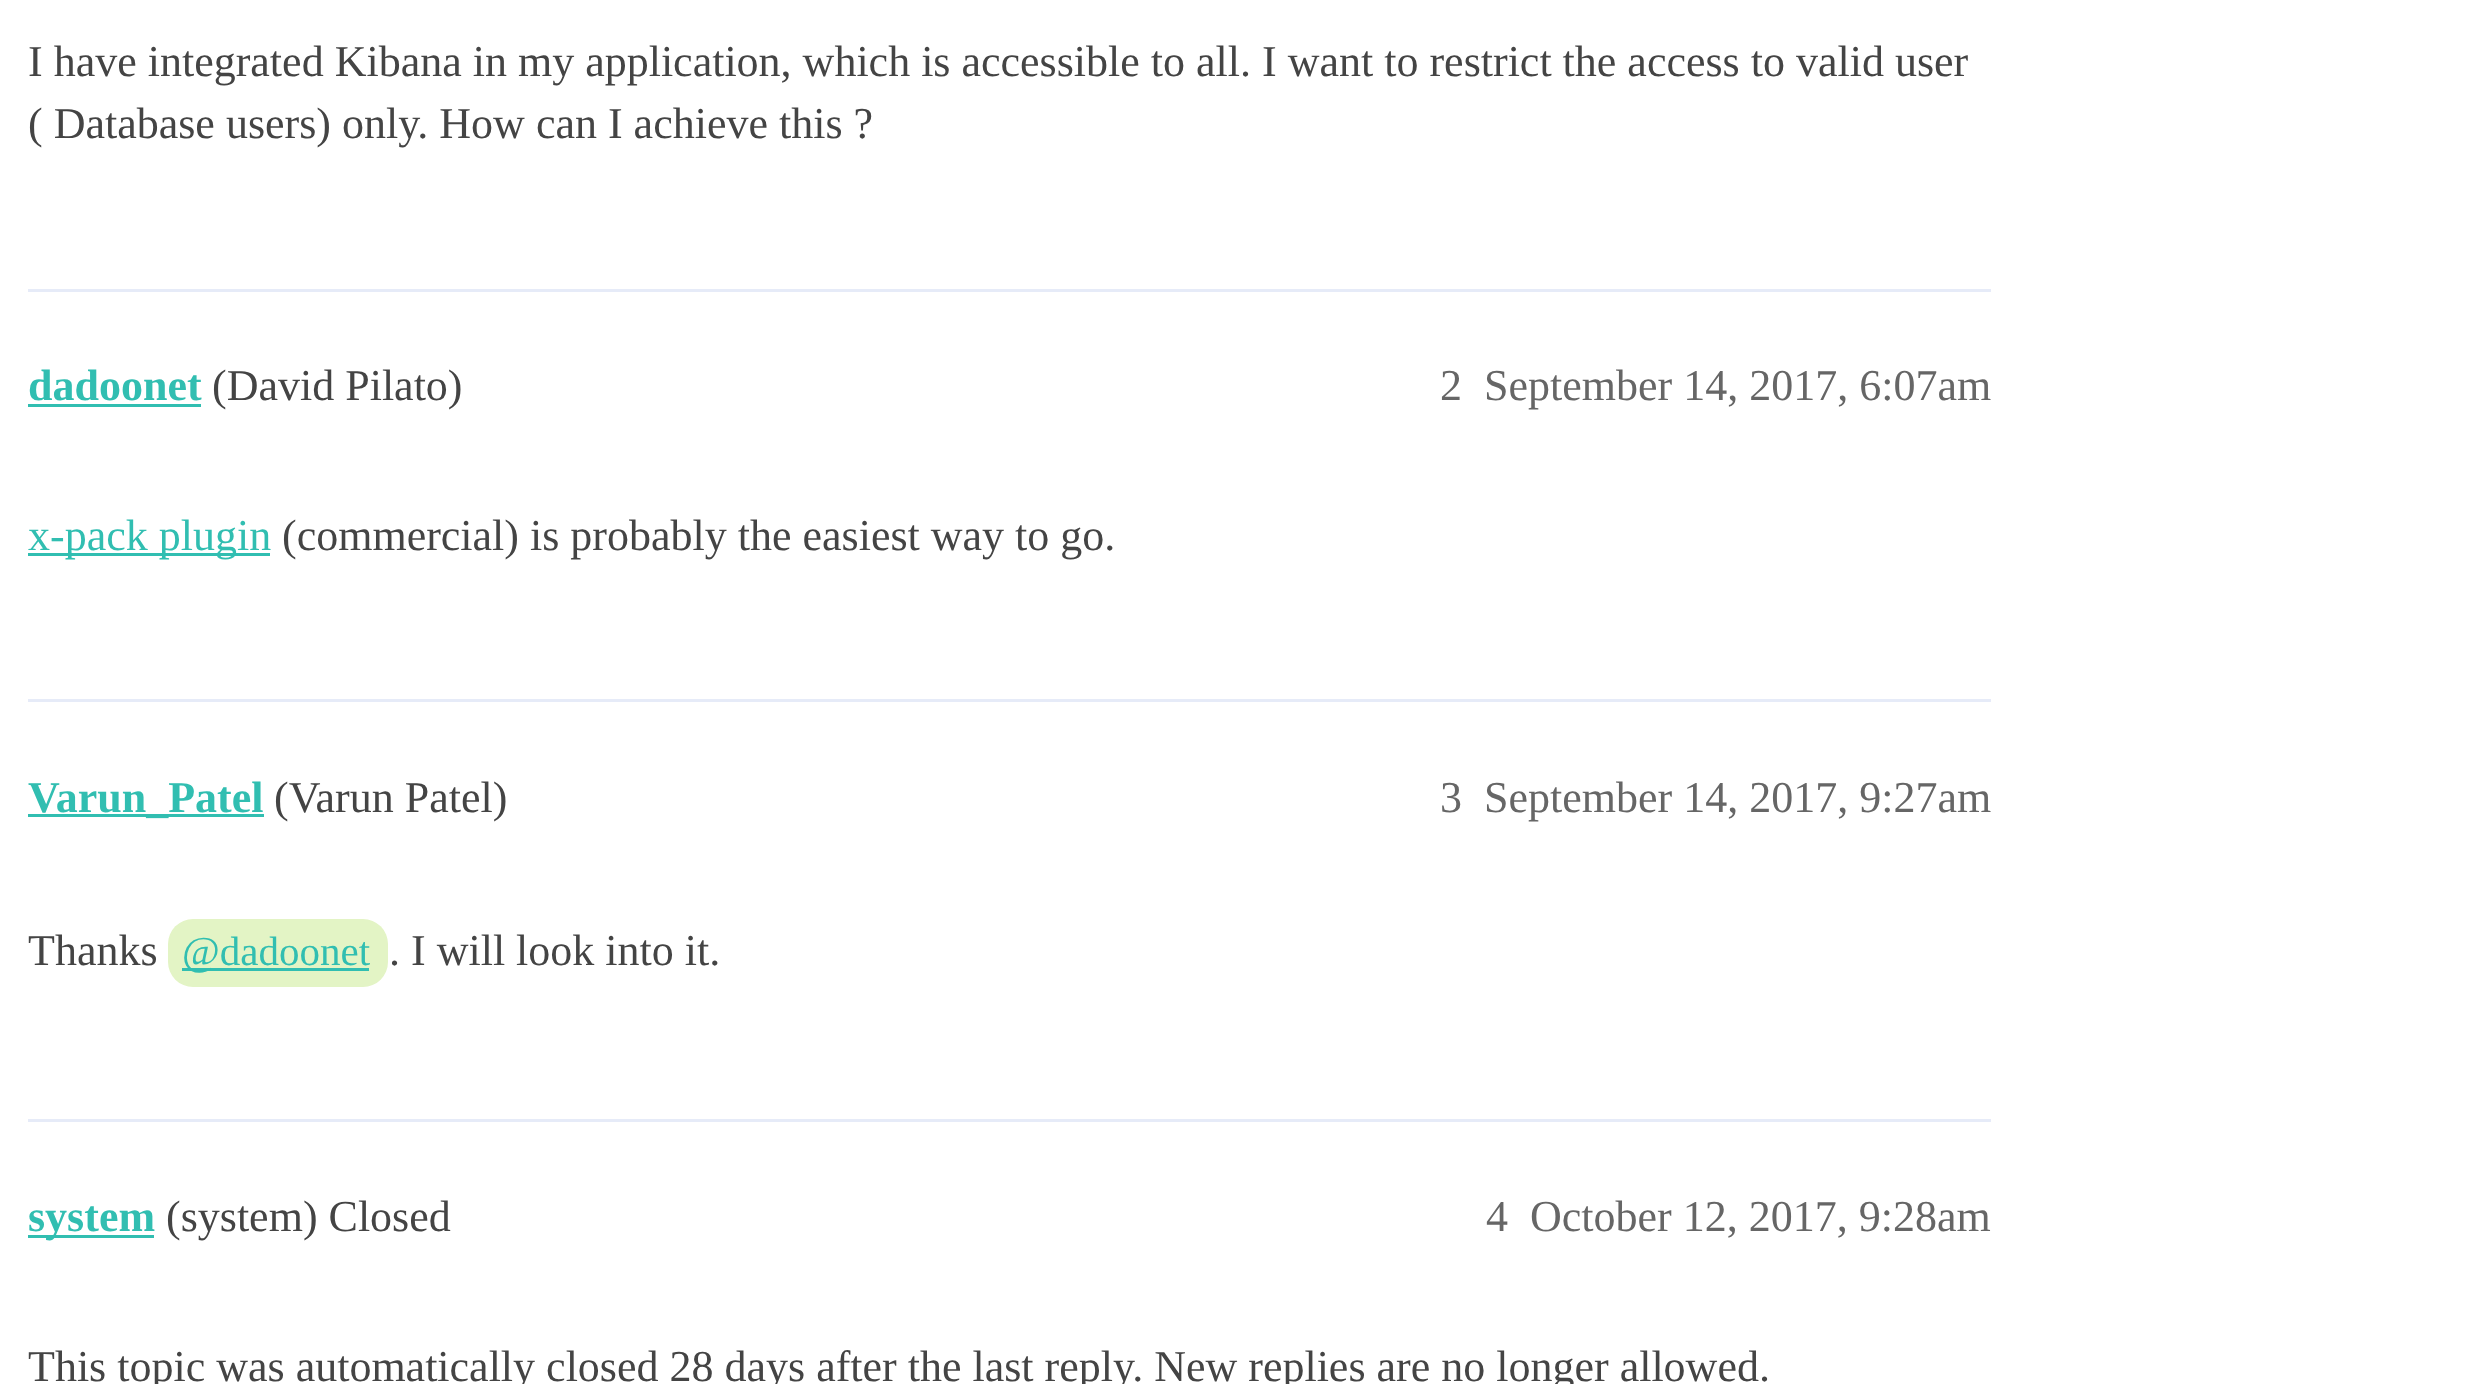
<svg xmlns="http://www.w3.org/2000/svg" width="2491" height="1384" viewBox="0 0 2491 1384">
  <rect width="100%" height="100%" fill="rgb(255,255,255)"/>
  <g font-family="Liberation Serif" font-size="44" fill="rgb(68,68,68)">
    <text>
      <tspan x="28" y="76">I have integrated Kibana in my application, which is accessible to all. I want to restrict the access to valid user</tspan>
      <tspan x="28" y="138">( Database users) only. How can I achieve this ?</tspan>
    </text>
  </g>
  <rect x="28" y="289" width="1963" height="3" fill="rgb(230,235,248)"/>
  <text x="28" y="400" font-family="Liberation Serif" font-size="44" font-weight="bold" fill="rgb(49,190,177)">dadoonet</text>
  <rect x="28" y="404" width="173" height="3" fill="rgb(49,190,177)"/>
  <text x="212" y="400" font-family="Liberation Serif" font-size="44" fill="rgb(68,68,68)">(David Pilato)</text>
  <g font-family="Liberation Serif" font-size="44" fill="rgb(102,102,102)">
    <text x="1440" y="400">2</text>
    <text x="1484" y="400">September 14, 2017, 6:07am</text>
  </g>
  <rect x="28" y="553" width="242" height="3" fill="rgb(49,190,177)"/>
  <text x="28" y="550" font-family="Liberation Serif" font-size="44" fill="rgb(49,190,177)">x-pack plugin</text>
  <text x="282" y="550" font-family="Liberation Serif" font-size="44" fill="rgb(68,68,68)">(commercial) is probably the easiest way to go.</text>
  <rect x="28" y="699" width="1963" height="3" fill="rgb(230,235,248)"/>
  <rect x="28" y="814" width="236" height="3" fill="rgb(49,190,177)"/>
  <text x="28" y="812" font-family="Liberation Serif" font-size="44" font-weight="bold" fill="rgb(49,190,177)">Varun_Patel</text>
  <text x="274" y="812" font-family="Liberation Serif" font-size="44" fill="rgb(68,68,68)">(Varun Patel)</text>
  <g font-family="Liberation Serif" font-size="44" fill="rgb(102,102,102)">
    <text x="1440" y="812">3</text>
    <text x="1484" y="812">September 14, 2017, 9:27am</text>
  </g>
  <text x="28" y="965" font-family="Liberation Serif" font-size="44" fill="rgb(68,68,68)">Thanks</text>
  <rect x="168" y="919" width="220" height="68" rx="25" fill="rgb(227,244,197)"/>
  <rect x="182" y="968" width="187" height="3" fill="rgb(49,190,177)"/>
  <text x="182" y="965" font-family="Liberation Serif" font-size="41" fill="rgb(49,190,177)">@dadoonet</text>
  <text x="389" y="965" font-family="Liberation Serif" font-size="44" fill="rgb(68,68,68)">. I will look into it.</text>
  <rect x="28" y="1119" width="1963" height="3" fill="rgb(230,235,248)"/>
  <rect x="28" y="1235" width="126" height="3" fill="rgb(49,190,177)"/>
  <text x="28" y="1231" font-family="Liberation Serif" font-size="44" font-weight="bold" fill="rgb(49,190,177)">system</text>
  <text x="166" y="1231" font-family="Liberation Serif" font-size="44" fill="rgb(68,68,68)">(system) Closed</text>
  <g font-family="Liberation Serif" font-size="44" fill="rgb(102,102,102)">
    <text x="1486" y="1231">4</text>
    <text x="1530" y="1231">October 12, 2017, 9:28am</text>
  </g>
  <text x="28" y="1381" font-family="Liberation Serif" font-size="44" fill="rgb(68,68,68)">This topic was automatically closed 28 days after the last reply. New replies are no longer allowed.</text>
</svg>
